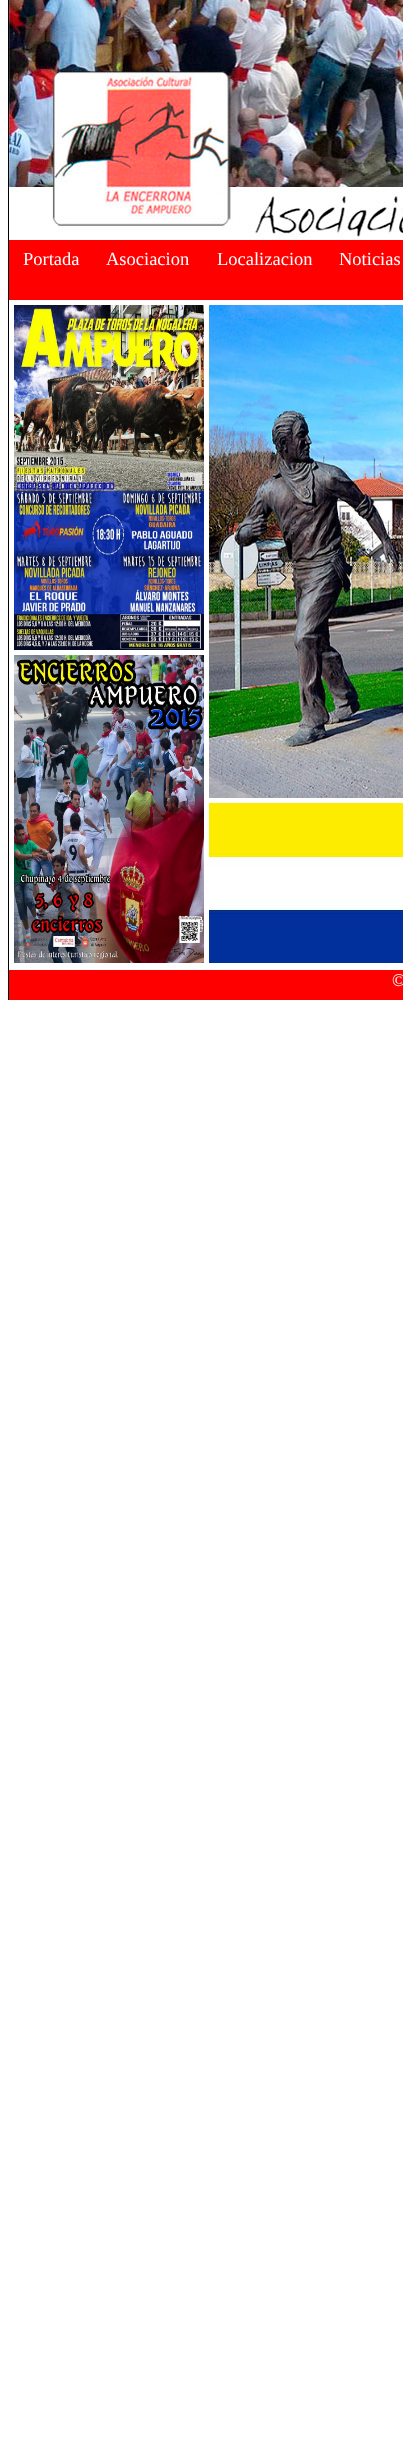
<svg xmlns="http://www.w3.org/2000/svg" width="403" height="2447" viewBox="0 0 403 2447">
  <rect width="100%" height="100%" fill="rgb(255,255,255)"/>
  <rect x="8" y="0" width="1" height="1000" fill="rgb(0,0,0)"/>
  <image x="9" y="0" width="394" height="240" href="pic1.png"/>
  <rect x="9" y="240" width="394" height="60" fill="rgb(255,0,0)"/>
  <g font-family="Liberation Serif" font-size="18.5" fill="rgb(255,255,255)">
    <text x="23" y="265">Portada</text>
    <text x="106" y="265">Asociacion</text>
    <text x="217" y="265">Localizacion</text>
    <text x="339" y="265">Noticias</text>
  </g>
  <image x="14" y="305" width="190" height="345" href="pic2.png"/>
  <image x="14" y="655" width="190" height="308" href="pic3.png"/>
  <image x="209" y="305" width="194" height="493" href="pic4.png"/>
  <image x="209" y="803" width="194" height="160" href="pic5.png"/>
  <rect x="9" y="970" width="394" height="30" fill="rgb(255,0,0)"/>
  <text x="392" y="986" font-family="Liberation Serif" font-size="18" fill="rgb(255,255,255)">©</text>
</svg>
